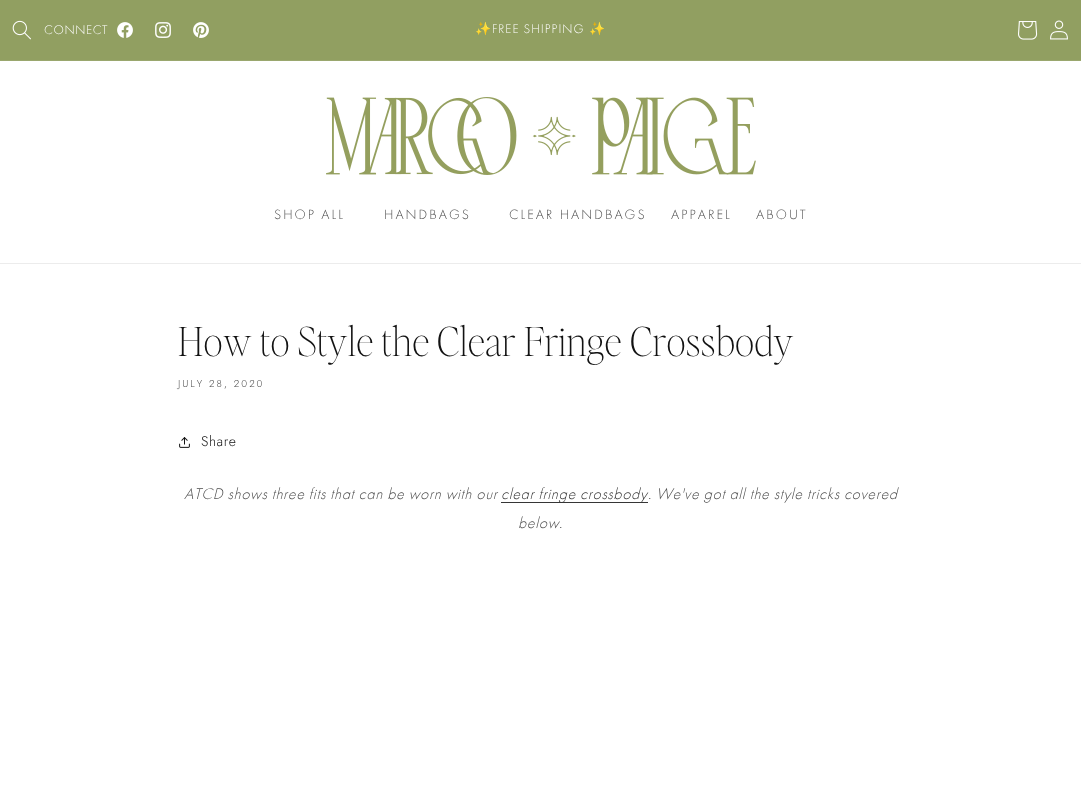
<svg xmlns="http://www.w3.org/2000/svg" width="1081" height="809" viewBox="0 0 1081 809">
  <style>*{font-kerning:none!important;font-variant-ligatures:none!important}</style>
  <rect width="100%" height="100%" fill="rgb(255,255,255)"/>
  <rect x="0" y="0" width="1081" height="60" fill="rgb(145,159,97)"/>
  <rect x="0" y="60" width="1081" height="1" fill="rgb(154,167,110)"/>
  <image x="12" y="20" width="19" height="20" href="pic1.png"/>
  <text x="44" y="34" font-family="Futura PT" font-size="13" font-weight="300" letter-spacing="0.6" fill="rgb(255,255,255)">CONNECT</text>
  <image x="117" y="22" width="16" height="16" href="pic2.png"/>
  <image x="155" y="22" width="16" height="16" href="pic3.png"/>
  <image x="193" y="22" width="16" height="16" href="pic4.png"/>
  <text x="475" y="33" font-family="Noto Color Emoji" font-size="13" letter-spacing="1" fill="rgb(255,255,255)">✨</text>
  <text x="492" y="33" font-family="Futura PT" font-size="13" font-weight="300" letter-spacing="1" fill="rgb(255,255,255)">FREE SHIPPING</text>
  <text x="589" y="33" font-family="Noto Color Emoji" font-size="13" letter-spacing="1" fill="rgb(255,255,255)">✨</text>
  <image x="1018" y="21" width="20" height="19" href="pic5.png"/>
  <image x="1050" y="20" width="18" height="20" href="pic6.png"/>
  <rect x="0" y="263" width="1081" height="1" fill="rgb(236,236,236)"/>
  <image x="326" y="97" width="430" height="78" href="pic7.png"/>
  <g font-family="Futura PT" font-size="14" font-weight="300" letter-spacing="2" fill="rgb(77,77,77)">
    <text x="274" y="219">SHOP ALL</text>
    <text x="384" y="219">HANDBAGS</text>
    <text x="509" y="219">CLEAR HANDBAGS</text>
    <text x="671" y="219">APPAREL</text>
    <text x="756" y="219">ABOUT</text>
  </g>
  <text x="178" y="356" font-family="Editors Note" font-size="40" font-weight="100" letter-spacing="0.6" fill="rgb(18,18,18)">How to Style the</text>
  <text x="437" y="356" font-family="Editors Note" font-size="40" font-weight="100" letter-spacing="0.6" fill="rgb(18,18,18)">Clear Fringe Crossbody</text>
  <text x="178" y="387" font-family="Jost" font-size="10" font-weight="300" letter-spacing="2" fill="rgb(77,77,77)">JULY 28, 2020</text>
  <image x="179" y="437" width="11" height="11" href="pic8.png"/>
  <text x="201" y="446" font-family="Jost" font-size="14" font-weight="300" letter-spacing="0.6" fill="rgb(18,18,18)">Share</text>
  <text x="184" y="499" font-family="Futura PT" font-size="16" font-weight="300" font-style="italic" letter-spacing="0.6" fill="rgb(77,77,77)">ATCD shows three fits that can be worn with our</text>
  <rect x="501" y="502" width="147" height="1" fill="rgb(54,54,54)"/>
  <text x="501" y="499" font-family="Futura PT" font-size="16" font-weight="300" font-style="italic" letter-spacing="0.6" fill="rgb(53,53,53)">clear fringe crossbody</text>
  <g font-family="Futura PT" font-size="16" font-weight="300" font-style="italic" letter-spacing="0.6" fill="rgb(77,77,77)">
    <text x="648" y="499">. We've got all the style tricks covered</text>
    <text x="518" y="528">below.</text>
  </g>
</svg>
